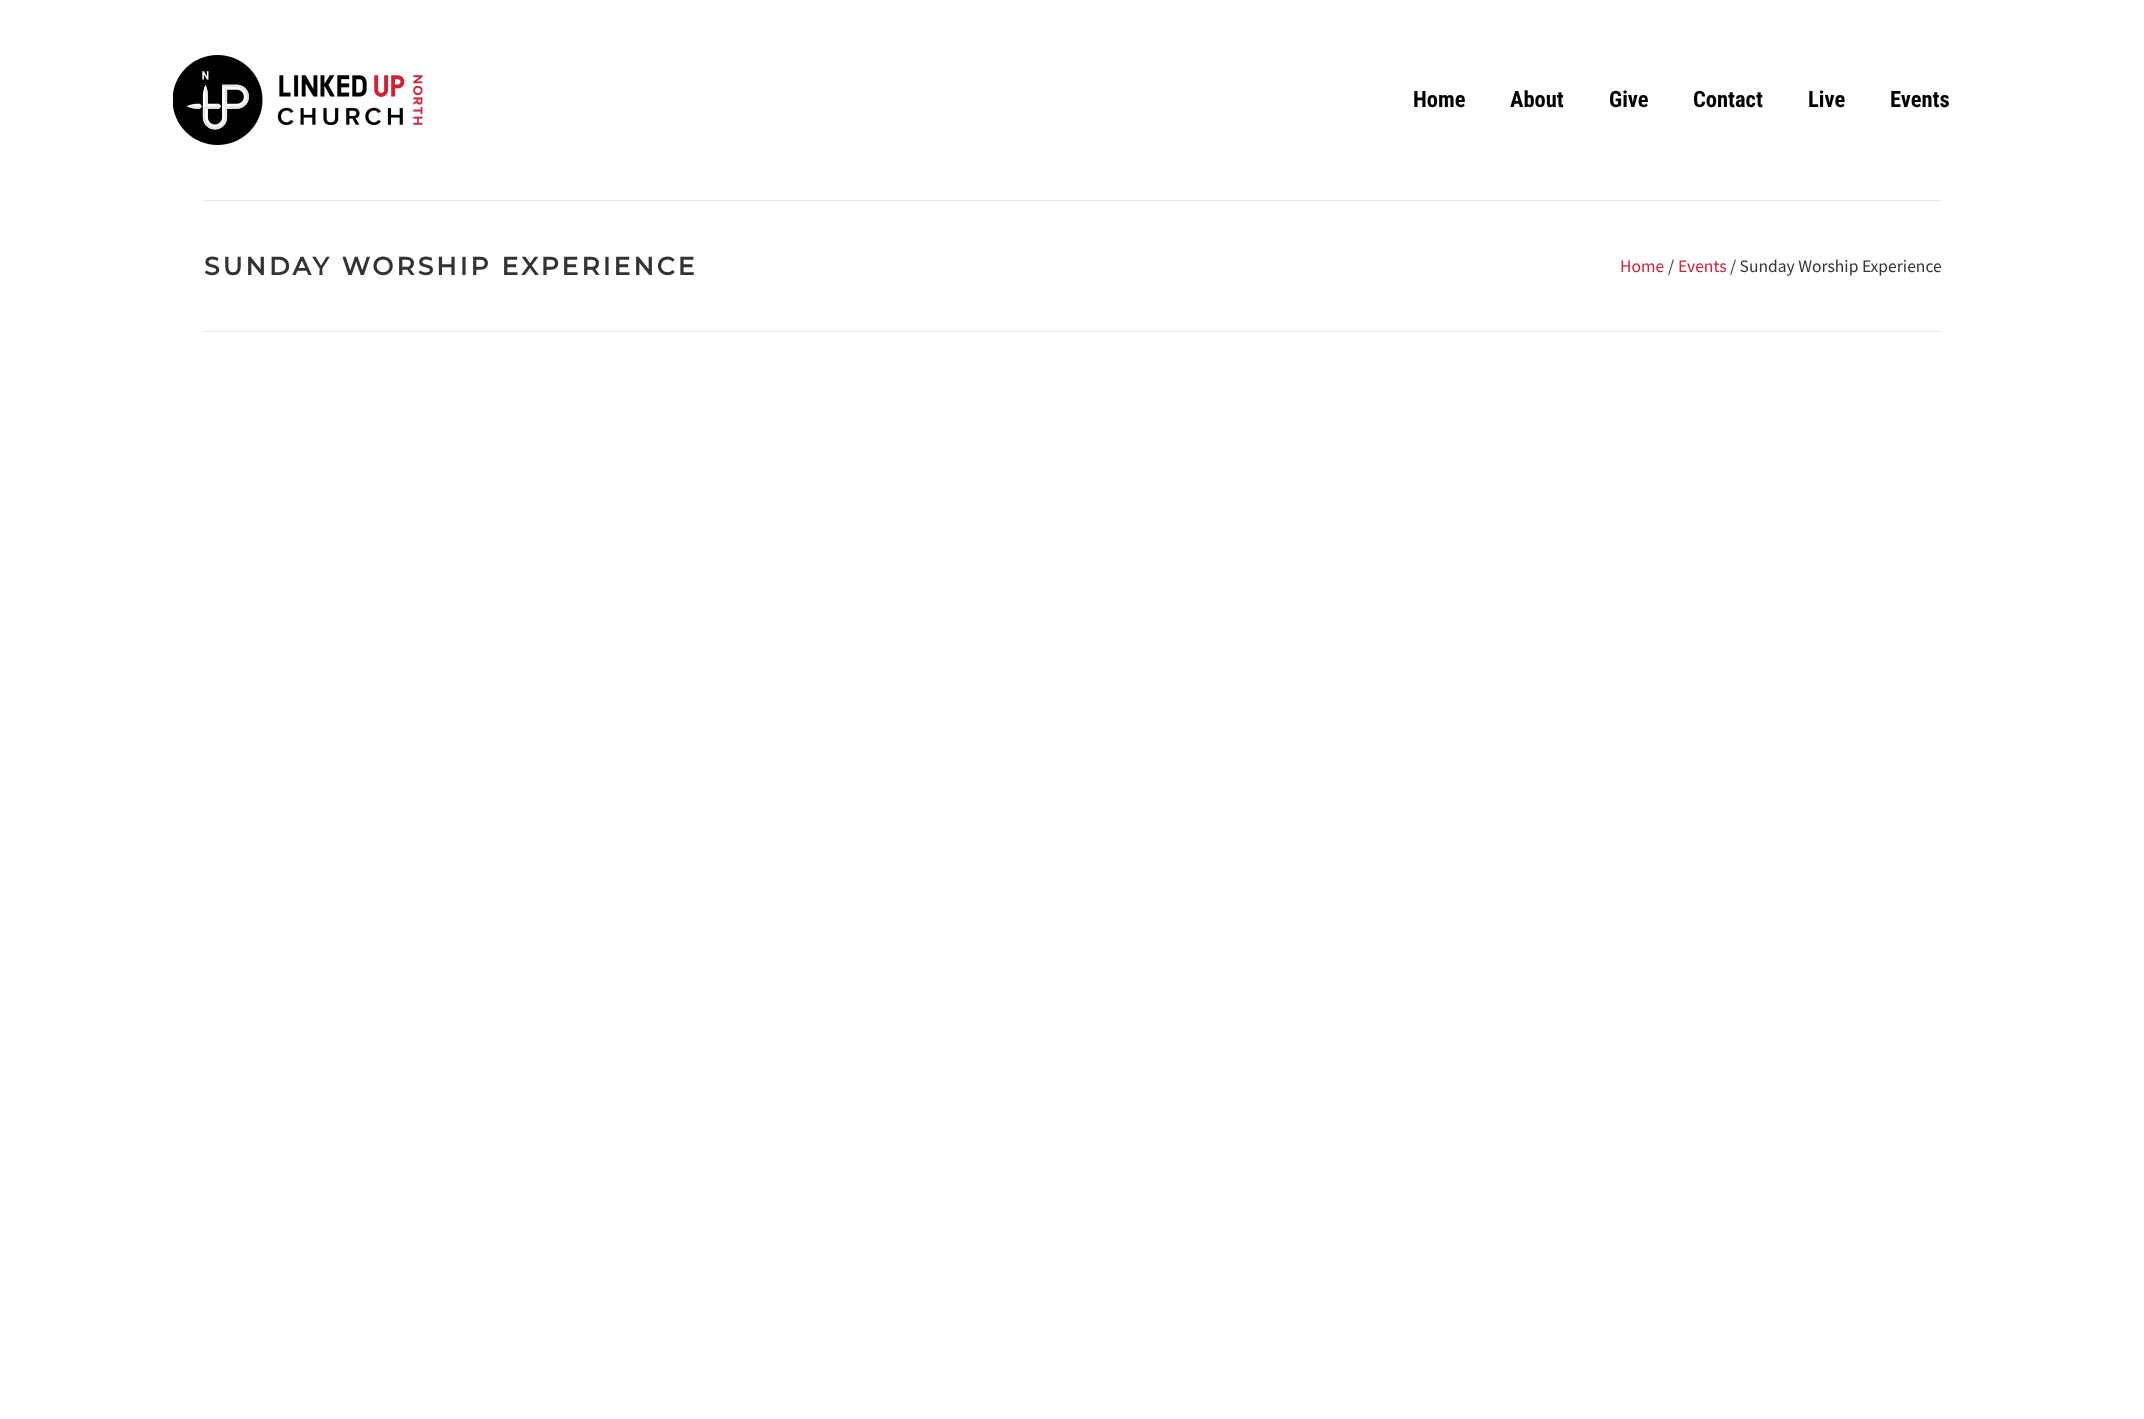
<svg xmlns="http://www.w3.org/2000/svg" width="2144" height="1419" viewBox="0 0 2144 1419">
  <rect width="100%" height="100%" fill="rgb(255,255,255)"/>
  <image x="173" y="55" width="250" height="90" href="pic1.png"/>
  <g font-family="Roboto Condensed" font-size="22.5" font-weight="bold" fill="rgb(0,0,0)">
    <text x="1413" y="107">Home</text>
    <text x="1510" y="107">About</text>
    <text x="1609" y="107">Give</text>
    <text x="1693" y="107">Contact</text>
    <text x="1808" y="107">Live</text>
    <text x="1890" y="107">Events</text>
  </g>
  <rect x="204" y="200" width="1737" height="1" fill="rgb(230,230,230)"/>
  <rect x="204" y="331" width="1737" height="1" fill="rgb(230,230,230)"/>
  <text x="204" y="275" font-family="Montserrat" font-size="25" font-weight="bold" letter-spacing="3.1" fill="rgb(51,51,51)">SUNDAY WORSHIP EXPERIENCE</text>
  <text x="1620" y="272" font-family="Source Sans Pro" font-size="17.5" fill="rgb(209,32,56)">Home</text>
  <text x="1668" y="272" font-family="Source Sans Pro" font-size="17.5" fill="rgb(51,51,51)">/</text>
  <text x="1678" y="272" font-family="Source Sans Pro" font-size="17.5" fill="rgb(209,32,56)">Events</text>
  <text x="1730" y="272" font-family="Source Sans Pro" font-size="17.5" fill="rgb(51,51,51)">/ Sunday Worship Experience</text>
</svg>
